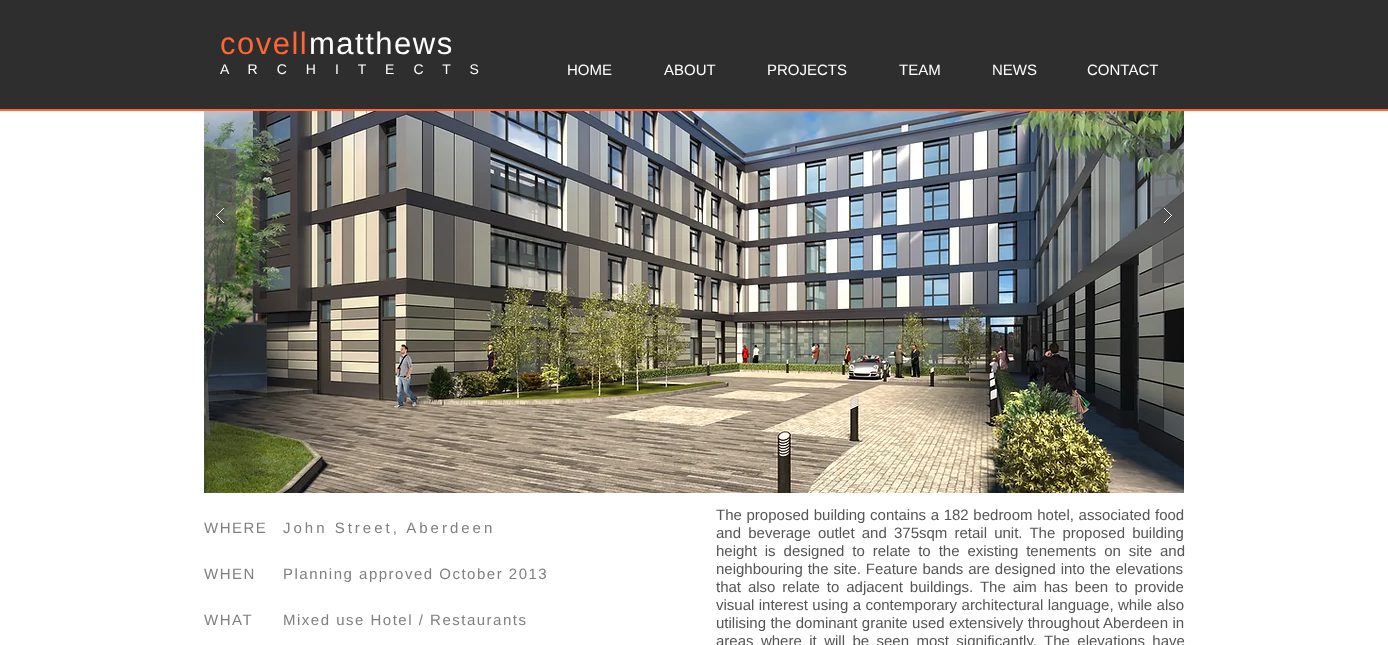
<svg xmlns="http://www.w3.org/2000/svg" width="1388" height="645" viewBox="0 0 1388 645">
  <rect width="100%" height="100%" fill="rgb(255,255,255)"/>
  <rect x="0" y="0" width="1388" height="109" fill="rgb(47,46,46)"/>
  <rect x="0" y="109" width="1388" height="2" fill="rgb(255,102,51)"/>
  <text x="220" y="54" font-family="Liberation Sans" font-size="31" letter-spacing="1.5" fill="rgb(255,102,51)">covell</text>
  <text x="309" y="54" font-family="Liberation Sans" font-size="31" letter-spacing="1.5" fill="rgb(255,255,255)">matthews</text>
  <text x="220" y="74" font-family="Liberation Sans" font-size="14" letter-spacing="3.75" fill="rgb(255,255,255)" xml:space="preserve">A  R  C  H  I  T  E  C  T  S</text>
  <g font-family="Liberation Sans" font-size="15" fill="rgb(255,255,255)">
    <text x="567" y="75">HOME</text>
    <text x="664" y="75">ABOUT</text>
    <text x="767" y="75">PROJECTS</text>
    <text x="899" y="75">TEAM</text>
    <text x="992" y="75">NEWS</text>
    <text x="1087" y="75">CONTACT</text>
  </g>
  <image x="204" y="111" width="980" height="382" href="pic1.png"/>
  <rect x="204" y="149" width="32" height="134" fill="rgba(85,85,85,0.6)"/>
  <image x="216" y="208" width="8" height="16" href="pic2.png"/>
  <rect x="1152" y="149" width="32" height="134" fill="rgba(85,85,85,0.6)"/>
  <image x="1164" y="208" width="8" height="16" href="pic3.png"/>
  <g font-family="Liberation Sans" font-size="15" letter-spacing="1.5" fill="rgb(128,128,128)">
    <text x="204" y="533">WHERE</text>
    <text x="204" y="579">WHEN</text>
    <text x="204" y="625">WHAT</text>
  </g>
  <text x="283" y="533" font-family="Liberation Sans" font-size="15" letter-spacing="3" fill="rgb(128,128,128)">John Street, Aberdeen</text>
  <g font-family="Liberation Sans" font-size="15" letter-spacing="1.5" fill="rgb(128,128,128)">
    <text x="283" y="579">Planning approved October 2013</text>
    <text x="283" y="625">Mixed use Hotel / Restaurants</text>
  </g>
  <g font-family="Liberation Sans" font-size="15" fill="rgb(85,85,85)">
    <text>
      <tspan x="716" y="520" word-spacing="0.5">The proposed building contains a 182 bedroom hotel, associated food</tspan>
      <tspan x="716" y="538" word-spacing="3">and beverage outlet and 375sqm retail unit. The proposed building</tspan>
      <tspan x="716" y="556" word-spacing="3.75">height is designed to relate to the existing tenements on site and</tspan>
      <tspan x="716" y="574" word-spacing="0.75">neighbouring the site. Feature bands are designed into the elevations</tspan>
      <tspan x="716" y="592" word-spacing="2.75">that also relate to adjacent buildings. The aim has been to provide</tspan>
      <tspan x="716" y="610" word-spacing="0.25">visual interest using a contemporary architectural language, while also</tspan>
      <tspan x="716" y="628" word-spacing="0.25">utilising the dominant granite used extensively throughout Aberdeen in</tspan>
      <tspan x="716" y="646" word-spacing="3.25">areas where it will be seen most significantly. The elevations have</tspan>
    </text>
  </g>
</svg>
